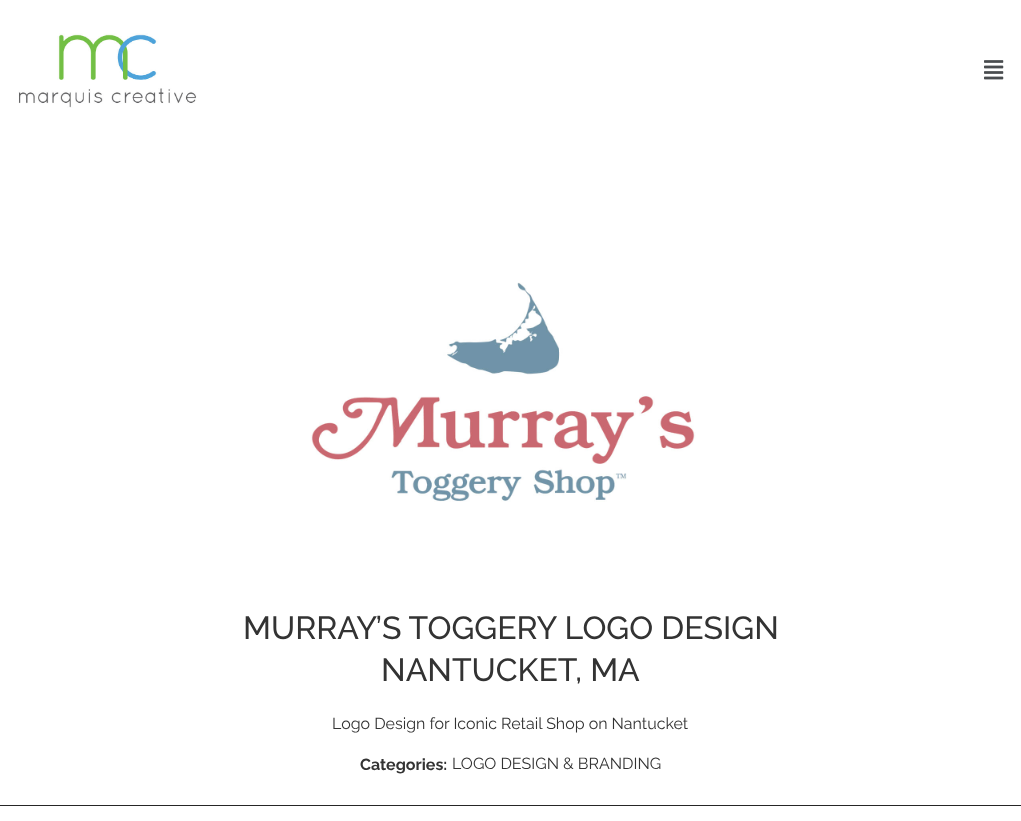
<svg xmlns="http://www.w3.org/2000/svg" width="1021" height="821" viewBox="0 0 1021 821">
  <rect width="100%" height="100%" fill="rgb(255,255,255)"/>
  <image x="18" y="33" width="179" height="75" href="pic1.png"/>
  <image x="984" y="60" width="20" height="20" href="pic2.png"/>
  <image x="310" y="282" width="386" height="220" href="pic3.png"/>
  <g font-family="Raleway" font-size="32" font-weight="500" fill="rgb(51,51,51)">
    <text x="243" y="639">MURRAY’S TOGGERY LOGO DESIGN</text>
    <text x="381" y="681">NANTUCKET, MA</text>
  </g>
  <text x="332" y="729" font-family="Raleway" font-size="16" fill="rgb(51,51,51)">Logo Design for Iconic Retail Shop on Nantucket</text>
  <text x="360" y="770" font-family="Raleway" font-size="16" font-weight="bold" fill="rgb(51,51,51)">Categories:</text>
  <text x="452" y="769" font-family="Raleway" font-size="16" fill="rgb(51,51,51)">LOGO DESIGN &amp; BRANDING</text>
  <rect x="0" y="805" width="1021" height="1" fill="rgb(38,38,38)"/>
</svg>
